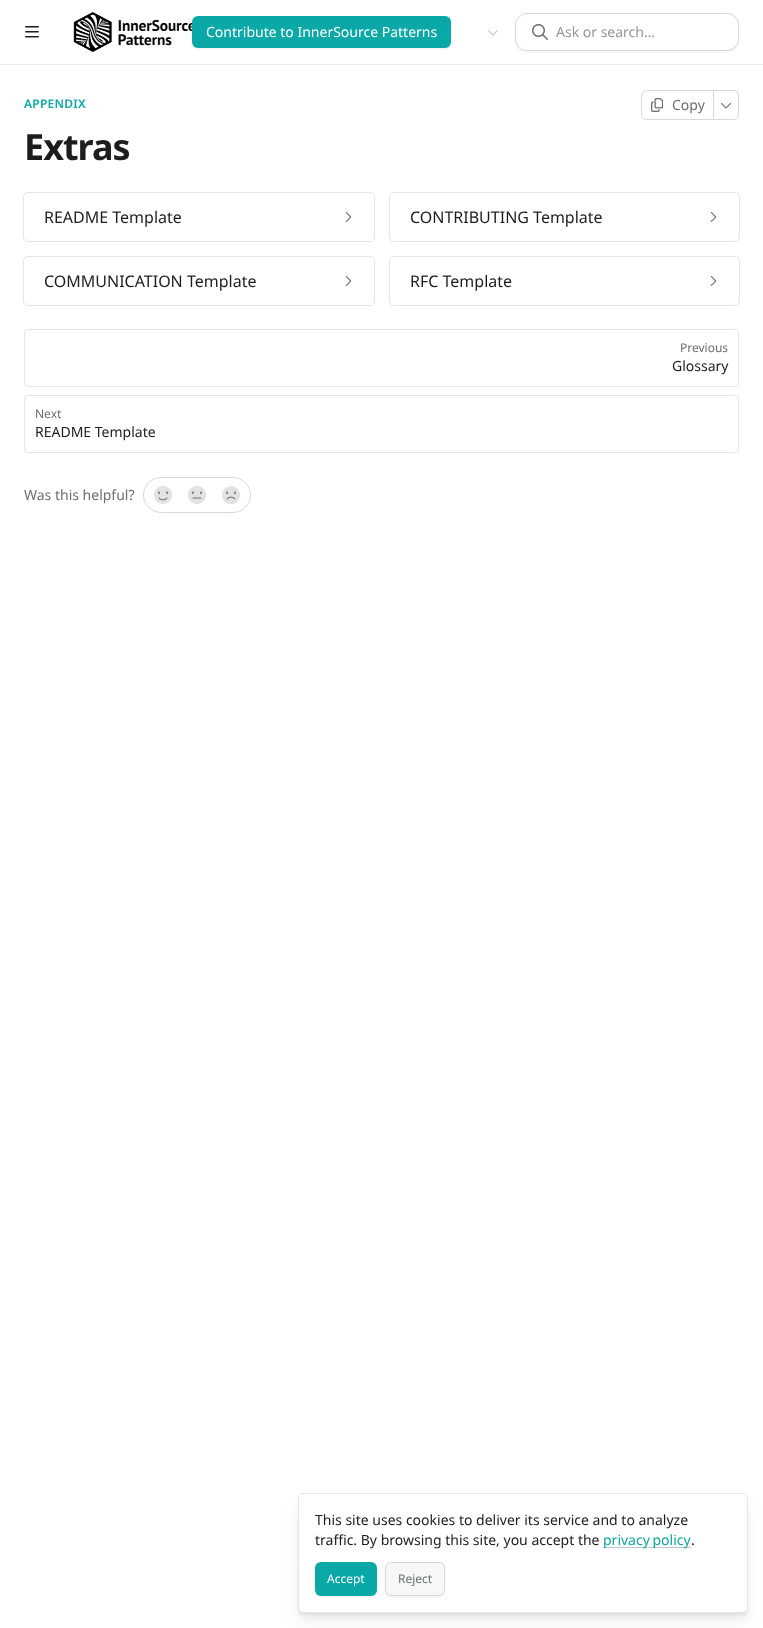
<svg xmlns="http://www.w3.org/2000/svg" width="763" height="1628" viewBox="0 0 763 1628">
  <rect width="100%" height="100%" fill="rgb(255,255,255)"/>
  <rect x="0" y="64" width="763" height="1" fill="rgb(237,237,237)"/>
  <image x="25" y="26" width="14" height="12" href="pic1.png"/>
  <image x="73" y="12" width="119" height="40" href="pic2.png"/>
  <rect x="192" y="17" width="259" height="32" rx="6" fill="rgba(212,218,218,0.4)" filter="blur(1px)"/>
  <rect x="192" y="16" width="259" height="32" rx="6" fill="rgb(10,168,167)"/>
  <text x="206" y="37" font-family="Noto Sans" font-size="14" fill="rgb(255,255,255)">Contribute to InnerSource Patterns</text>
  <image x="488" y="30" width="10" height="6" href="pic3.png"/>
  <rect x="515" y="14" width="224" height="38" rx="12" fill="rgba(212,218,218,0.4)" filter="blur(1px)"/>
  <rect x="515.5" y="13.5" width="223" height="37" rx="11.5" fill="rgb(255,255,255)" stroke="rgb(212,218,218)"/>
  <image x="532" y="24" width="16" height="16" href="pic4.png"/>
  <text x="556" y="37" font-family="Noto Sans" font-size="14" fill="rgb(147,152,152)">Ask or search…</text>
  <text x="24" y="108" font-family="Noto Sans" font-size="12" font-weight="600" letter-spacing="0.25" fill="rgb(10,168,167)">APPENDIX</text>
  <path d="M647 90.5H713.5V119.5H647C644 119.5 641.5 117 641.5 114V96C641.5 93 644 90.5 647 90.5Z" fill="none" stroke="rgb(212,218,218)"/>
  <image x="651" y="98" width="12" height="14" href="pic5.png"/>
  <text x="672" y="110" font-family="Noto Sans" font-size="14" fill="rgb(105,112,112)">Copy</text>
  <path d="M714 90H733C736.5 90 739 92.5 739 96V114C739 117.5 736.5 120 733 120H714ZM714 91H733C736 91 738 93 738 96V114C738 117 736 119 733 119H714Z" fill="rgb(212,218,218)" fill-rule="evenodd"/>
  <image x="721" y="103" width="10" height="6" href="pic6.png"/>
  <text x="24" y="160" font-family="Noto Sans" font-size="36" font-weight="bold" letter-spacing="-1" fill="rgb(28,29,29)">Extras</text>
  <rect x="23.5" y="192.5" width="351" height="49" rx="4.5" fill="none" stroke="rgb(226,231,230)"/>
  <text x="44" y="223" font-family="Noto Sans" font-size="16" fill="rgb(28,29,29)">README Template</text>
  <image x="345" y="212" width="6" height="10" href="pic7.png"/>
  <rect x="389.5" y="192.5" width="350" height="49" rx="4.5" fill="none" stroke="rgb(226,231,230)"/>
  <text x="410" y="223" font-family="Noto Sans" font-size="16" fill="rgb(28,29,29)">CONTRIBUTING Template</text>
  <image x="710" y="212" width="7" height="10" href="pic8.png"/>
  <rect x="23.5" y="256.5" width="351" height="49" rx="4.5" fill="none" stroke="rgb(226,231,230)"/>
  <text x="44" y="287" font-family="Noto Sans" font-size="16" fill="rgb(28,29,29)">COMMUNICATION Template</text>
  <image x="345" y="276" width="6" height="10" href="pic7.png"/>
  <rect x="389.5" y="256.5" width="350" height="49" rx="4.5" fill="none" stroke="rgb(226,231,230)"/>
  <text x="410" y="287" font-family="Noto Sans" font-size="16" fill="rgb(28,29,29)">RFC Template</text>
  <image x="710" y="276" width="7" height="10" href="pic8.png"/>
  <rect x="24.5" y="329.5" width="714" height="57" rx="3.5" fill="none" stroke="rgb(226,231,230)"/>
  <text x="680" y="352" font-family="Noto Sans" font-size="12" fill="rgb(105,112,112)">Previous</text>
  <text x="672" y="371" font-family="Noto Sans" font-size="14" fill="rgb(28,29,29)">Glossary</text>
  <rect x="24.5" y="395.5" width="714" height="57" rx="3.5" fill="none" stroke="rgb(226,231,230)"/>
  <text x="35" y="418" font-family="Noto Sans" font-size="12" fill="rgb(105,112,112)">Next</text>
  <text x="35" y="437" font-family="Noto Sans" font-size="14" fill="rgb(28,29,29)">README Template</text>
  <text x="24" y="500" font-family="Noto Sans" font-size="14" fill="rgb(105,112,112)">Was this helpful?</text>
  <rect x="143.5" y="477.5" width="107" height="35" rx="17.5" fill="none" stroke="rgb(212,218,218)"/>
  <image x="154" y="486" width="18" height="18" href="pic9.png"/>
  <image x="188" y="486" width="18" height="18" href="pic10.png"/>
  <image x="222" y="486" width="18" height="18" href="pic11.png"/>
  <rect x="299" y="1508" width="448" height="118" rx="4" fill="rgba(0,0,0,0.04)" filter="blur(11px)"/>
  <rect x="299" y="1500" width="448" height="118" rx="4" fill="rgba(0,0,0,0.05)" filter="blur(3.5px)"/>
  <rect x="299" y="1497" width="448" height="118" rx="4" fill="rgba(0,0,0,0.05)" filter="blur(1.5px)"/>
  <rect x="299" y="1495" width="448" height="118" rx="4" fill="rgba(0,0,0,0.09)" filter="blur(0.5px)"/>
  <rect x="298.5" y="1493.5" width="449" height="119" rx="4.5" fill="none" stroke="rgb(226,231,230)"/>
  <rect x="299" y="1494" width="448" height="118" rx="4" fill="rgb(255,255,255)"/>
  <g font-family="Noto Sans" font-size="14" fill="rgb(28,29,29)">
    <text>
      <tspan x="315" y="1525">This site uses cookies to deliver its service and to analyze</tspan>
      <tspan x="315" y="1545">traffic. By browsing this site, you accept the</tspan>
    </text>
  </g>
  <rect x="603" y="1547" width="88" height="1" fill="rgb(185,201,200)"/>
  <text x="603" y="1545" word-spacing="-1" font-family="Noto Sans" font-size="14" fill="rgb(10,168,167)">privacy policy</text>
  <text x="691" y="1545" font-family="Noto Sans" font-size="14" fill="rgb(28,29,29)">.</text>
  <rect x="315" y="1563" width="62" height="34" rx="6" fill="rgba(212,218,218,0.4)" filter="blur(1px)"/>
  <rect x="315" y="1562" width="62" height="34" rx="6" fill="rgb(10,168,167)"/>
  <text x="327" y="1583" font-family="Noto Sans" font-size="12" fill="rgb(255,255,255)">Accept</text>
  <rect x="385" y="1563" width="60" height="34" rx="6" fill="rgba(212,218,218,0.4)" filter="blur(1px)"/>
  <rect x="385.5" y="1562.5" width="59" height="33" rx="5.5" fill="rgb(246,248,248)" stroke="rgb(212,218,218)"/>
  <text x="398" y="1583" font-family="Noto Sans" font-size="12" fill="rgb(105,112,112)">Reject</text>
</svg>
